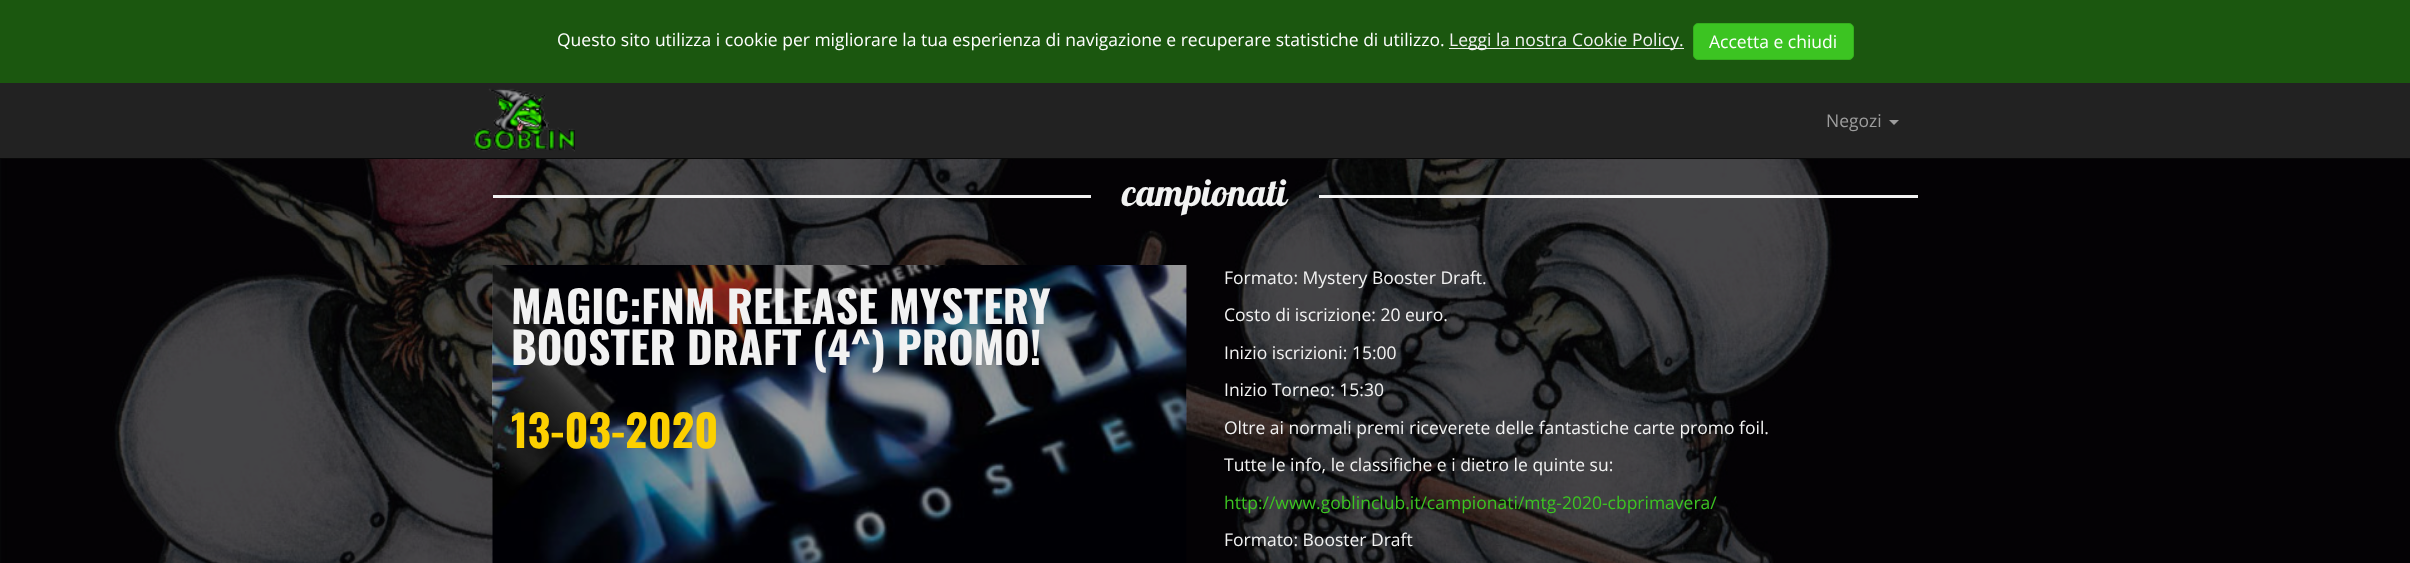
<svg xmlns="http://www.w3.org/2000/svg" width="2410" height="563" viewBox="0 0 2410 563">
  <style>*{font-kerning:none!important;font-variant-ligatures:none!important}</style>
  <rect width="100%" height="100%" fill="rgb(255,255,255)"/>
  <rect x="0" y="83" width="2410" height="75" fill="rgb(34,34,34)"/>
  <rect x="0" y="158" width="2410" height="1" fill="rgb(8,8,8)"/>
  <rect x="0" y="0" width="2410" height="83" fill="rgb(27,87,15)"/>
  <text x="557" y="46" font-family="Open Sans" font-size="17.5" fill="rgb(255,255,255)">Questo sito utilizza i cookie per migliorare la tua esperienza di navigazione e recuperare statistiche di utilizzo.</text>
  <rect x="1449" y="48" width="235" height="1" fill="rgb(242,242,242)"/>
  <text x="1449" y="46" font-family="Open Sans" font-size="17.5" fill="rgb(242,242,242)">Leggi la nostra Cookie Policy.</text>
  <rect x="1693.5" y="23.5" width="160" height="36" rx="4.5" fill="rgb(60,196,34)" stroke="rgb(53,174,30)"/>
  <text x="1709" y="48" font-family="Open Sans" font-size="17.5" fill="rgb(255,255,255)">Accetta e chiudi</text>
  <image x="473" y="88" width="102" height="64" href="pic1.png"/>
  <text x="1826" y="127" font-family="Open Sans" font-size="17.5" fill="rgb(157,157,157)">Negozi</text>
  <path d="M1889 120H1899L1894 125Z" fill="rgb(157,157,157)"/>
  <image x="0" y="159" width="2410" height="404" href="pic2.png"/>
  <rect x="493" y="195" width="598" height="3" fill="rgb(242,242,242)"/>
  <text x="1122" y="206" font-family="Lobster" font-size="37.5" fill="rgb(242,242,242)">campionati</text>
  <rect x="1319" y="195" width="599" height="3" fill="rgb(242,242,242)"/>
  <image x="492" y="265" width="695" height="298" href="pic3.png"/>
  <g font-family="Oswald" font-size="43.75" font-weight="bold" fill="rgb(242,242,242)">
    <text>
      <tspan x="511" y="324">MAGIC:FNM RELEASE MYSTERY</tspan>
      <tspan x="511" y="365">BOOSTER DRAFT (4^) PROMO!</tspan>
    </text>
  </g>
  <text x="511" y="448" font-family="Oswald" font-size="43.75" font-weight="bold" fill="rgb(252,208,0)">13-03-2020</text>
  <g font-family="Open Sans" font-size="17.5" fill="rgb(242,242,242)">
    <text x="1224" y="284">Formato: Mystery Booster Draft.</text>
    <text x="1224" y="321">Costo di iscrizione: 20 euro.</text>
    <text x="1224" y="359">Inizio iscrizioni: 15:00</text>
    <text x="1224" y="396">Inizio Torneo: 15:30</text>
    <text x="1224" y="434">Oltre ai normali premi riceverete delle fantastiche carte promo foil.</text>
    <text x="1224" y="471">Tutte le info, le classifiche e i dietro le quinte su:</text>
  </g>
  <text x="1224" y="509" font-family="Open Sans" font-size="17.5" fill="rgb(60,196,34)">http://www.goblinclub.it/campionati/mtg-2020-cbprimavera/</text>
  <text x="1224" y="546" font-family="Open Sans" font-size="17.5" fill="rgb(242,242,242)">Formato: Booster Draft</text>
</svg>
